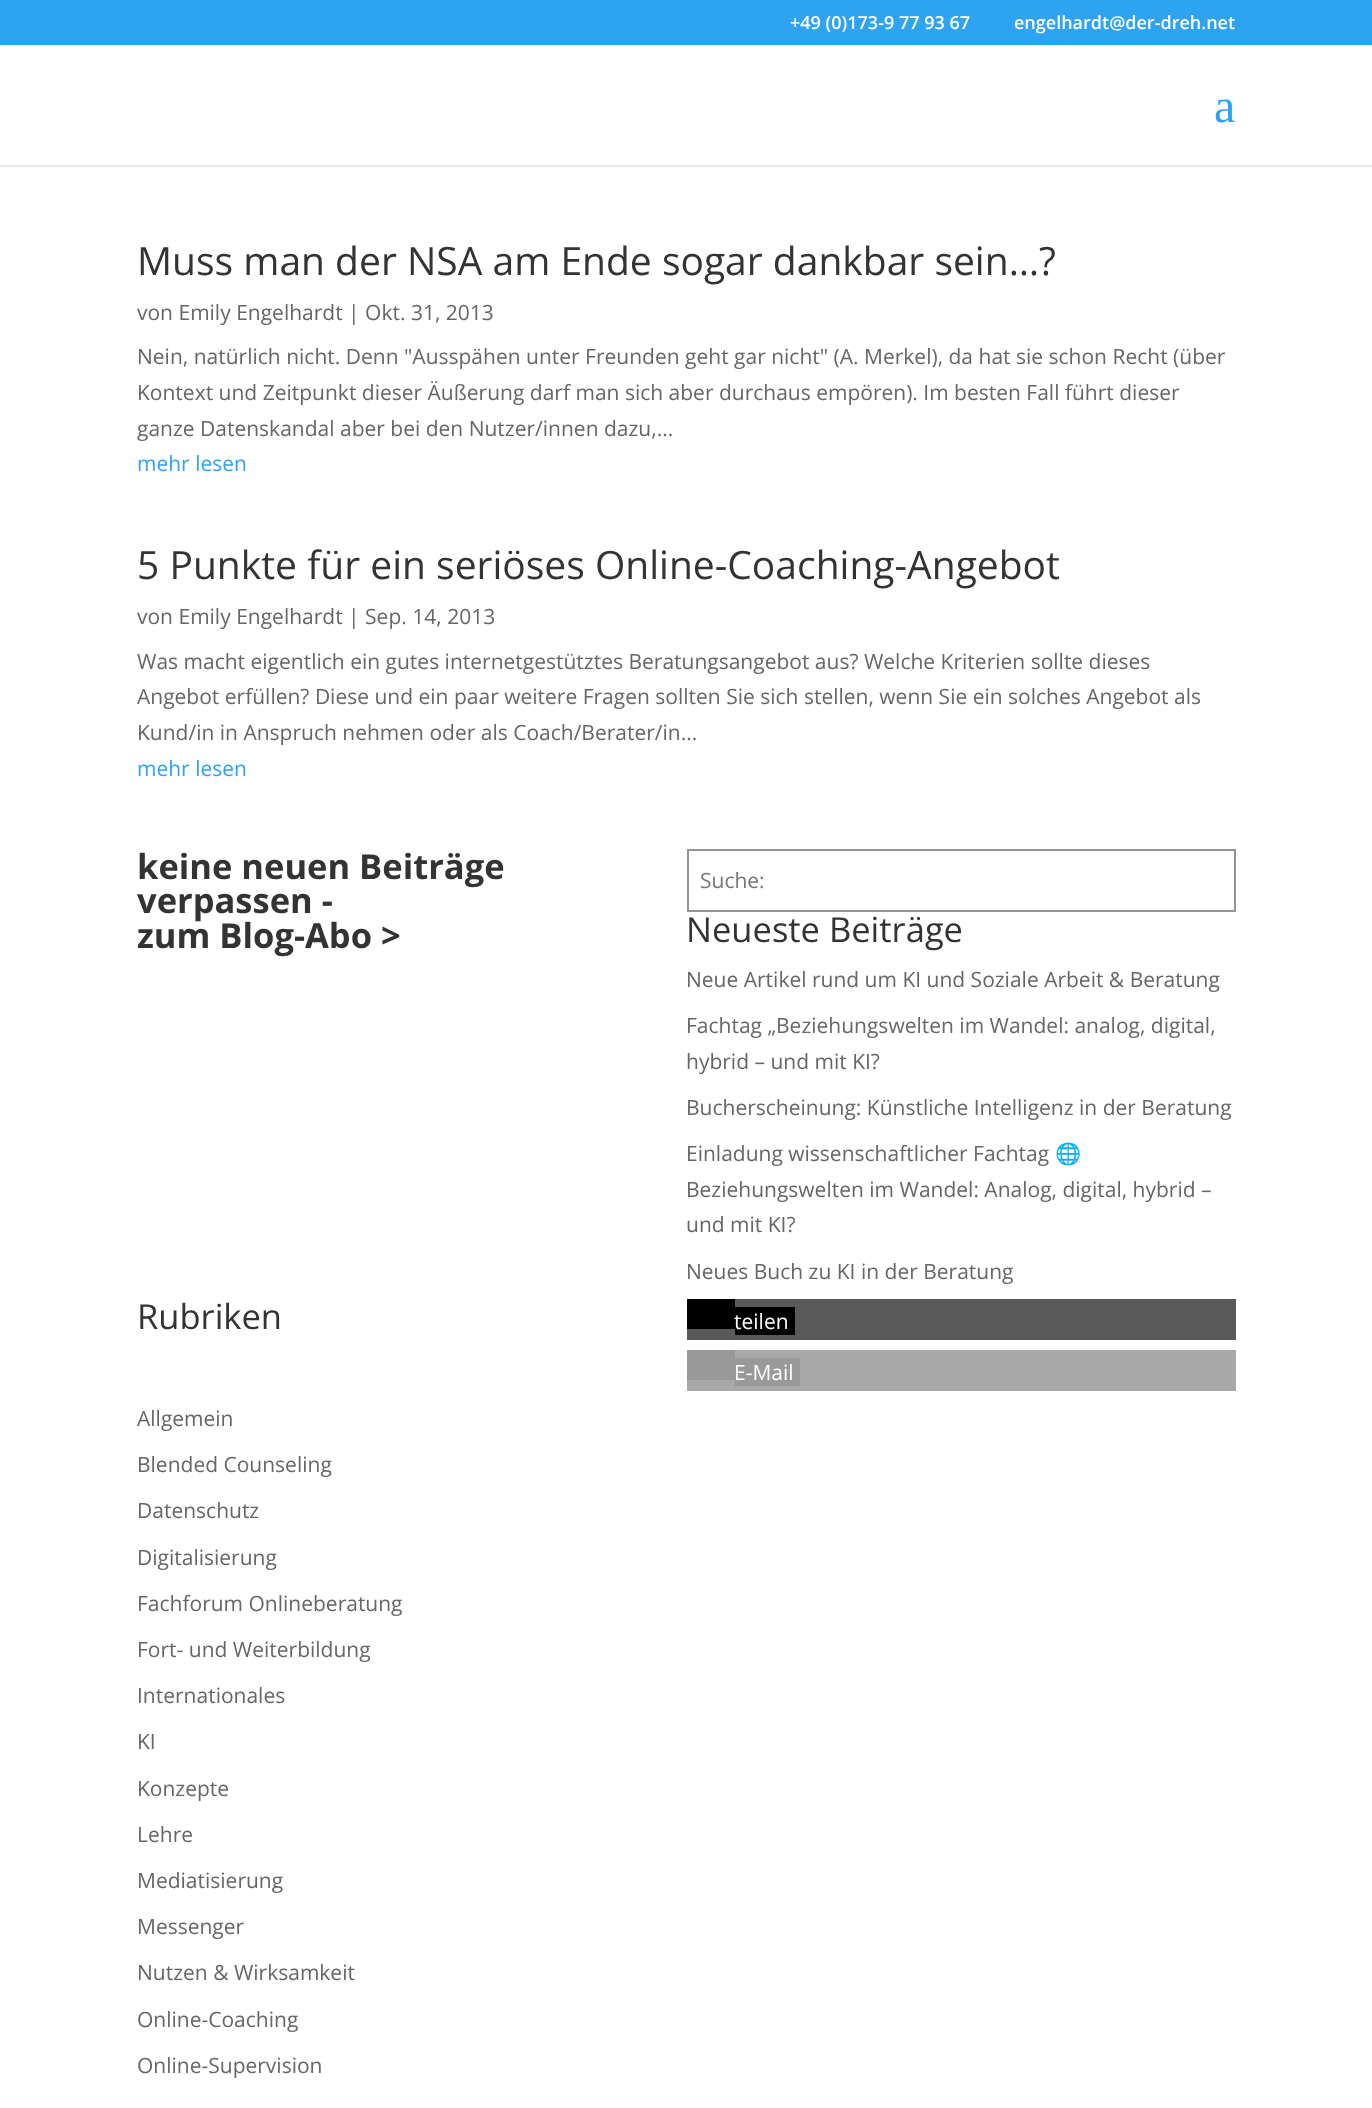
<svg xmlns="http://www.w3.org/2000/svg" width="1372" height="2108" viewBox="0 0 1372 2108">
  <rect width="100%" height="100%" fill="rgb(255,255,255)"/>
  <rect x="0" y="0" width="1372" height="45" fill="rgb(46,163,242)"/>
  <g font-family="Open Sans" font-size="18" font-weight="600" fill="rgb(255,255,255)">
    <text x="790" y="29">+49 (0)173-9 77 93 67</text>
    <text x="1014" y="29">engelhardt@der-dreh.net</text>
  </g>
  <path d="M0 165V167H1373V47H1372V165Z" fill="rgb(230,230,230)"/>
  <text x="1214" y="122" font-family="Liberation Serif" font-size="48" fill="rgb(46,163,242)">a</text>
  <text x="137" y="275" font-family="Open Sans" font-size="39" fill="rgb(51,51,51)">Muss man der NSA am Ende sogar dankbar sein…?</text>
  <g font-family="Open Sans" font-size="21" fill="rgb(102,102,102)">
    <text x="137" y="320">von Emily Engelhardt | Okt. 31, 2013</text>
    <text>
      <tspan x="137" y="364">Nein, natürlich nicht. Denn "Ausspähen unter Freunden geht gar nicht" (A. Merkel), da hat sie schon Recht (über</tspan>
      <tspan x="137" y="400">Kontext und Zeitpunkt dieser Äußerung darf man sich aber durchaus empören). Im besten Fall führt dieser</tspan>
      <tspan x="137" y="436">ganze Datenskandal aber bei den Nutzer/innen dazu,...</tspan>
    </text>
  </g>
  <text x="137" y="471" font-family="Open Sans" font-size="21" fill="rgb(46,163,242)">mehr lesen</text>
  <text x="137" y="579" font-family="Open Sans" font-size="39" fill="rgb(51,51,51)">5 Punkte für ein seriöses Online-Coaching-Angebot</text>
  <g font-family="Open Sans" font-size="21" fill="rgb(102,102,102)">
    <text x="137" y="624">von Emily Engelhardt | Sep. 14, 2013</text>
    <text>
      <tspan x="137" y="669">Was macht eigentlich ein gutes internetgestütztes Beratungsangebot aus? Welche Kriterien sollte dieses</tspan>
      <tspan x="137" y="704">Angebot erfüllen? Diese und ein paar weitere Fragen sollten Sie sich stellen, wenn Sie ein solches Angebot als</tspan>
      <tspan x="137" y="740">Kund/in in Anspruch nehmen oder als Coach/Berater/in...</tspan>
    </text>
  </g>
  <text x="137" y="776" font-family="Open Sans" font-size="21" fill="rgb(46,163,242)">mehr lesen</text>
  <g font-family="Open Sans" font-size="34.5" font-weight="bold" fill="rgb(51,51,51)">
    <text>
      <tspan x="137" y="879">keine neuen Beiträge</tspan>
      <tspan x="137" y="913">verpassen -</tspan>
      <tspan x="137" y="948">zum Blog-Abo &gt;</tspan>
    </text>
  </g>
  <rect x="688" y="850" width="547" height="61" fill="none" stroke="rgb(148,148,148)" stroke-width="2"/>
  <text x="700" y="888" font-family="Open Sans" font-size="21" fill="rgb(117,117,117)">Suche:</text>
  <text x="686" y="942" font-family="Open Sans" font-size="34.5" fill="rgb(51,51,51)">Neueste Beiträge</text>
  <g font-family="Open Sans" font-size="21" fill="rgb(102,102,102)">
    <text x="686" y="987">Neue Artikel rund um KI und Soziale Arbeit &amp; Beratung</text>
    <text>
      <tspan x="686" y="1033">Fachtag „Beziehungswelten im Wandel: analog, digital,</tspan>
      <tspan x="686" y="1069">hybrid – und mit KI?</tspan>
    </text>
    <text x="686" y="1115">Bucherscheinung: Künstliche Intelligenz in der Beratung</text>
    <text x="686" y="1161">Einladung wissenschaftlicher Fachtag</text>
  </g>
  <text x="1055" y="1161" font-family="Noto Color Emoji" font-size="21" fill="rgb(102,102,102)">🌐</text>
  <g font-family="Open Sans" font-size="21" fill="rgb(102,102,102)">
    <text>
      <tspan x="686" y="1197">Beziehungswelten im Wandel: Analog, digital, hybrid –</tspan>
      <tspan x="686" y="1232">und mit KI?</tspan>
    </text>
    <text x="686" y="1279">Neues Buch zu KI in der Beratung</text>
  </g>
  <text x="137" y="1329" font-family="Open Sans" font-size="34.5" fill="rgb(51,51,51)">Rubriken</text>
  <rect x="687" y="1299" width="549" height="41" fill="rgb(89,89,89)"/>
  <rect x="687" y="1299" width="48" height="30" fill="rgb(0,0,0)"/>
  <rect x="735" y="1307" width="60" height="28" fill="rgb(0,0,0)"/>
  <text x="734" y="1329" font-family="Open Sans" font-size="21" fill="rgb(255,255,255)">teilen</text>
  <rect x="687" y="1350" width="549" height="41" fill="rgb(168,168,168)"/>
  <rect x="735" y="1358" width="65" height="28" fill="rgb(153,153,153)"/>
  <text x="734" y="1380" font-family="Open Sans" font-size="21" fill="rgb(255,255,255)">E-Mail</text>
  <rect x="687" y="1350" width="48" height="30" fill="rgb(153,153,153)"/>
  <g font-family="Open Sans" font-size="21" fill="rgb(102,102,102)">
    <text x="137" y="1426">Allgemein</text>
    <text x="137" y="1472">Blended Counseling</text>
    <text x="137" y="1518">Datenschutz</text>
    <text x="137" y="1565">Digitalisierung</text>
    <text x="137" y="1611">Fachforum Onlineberatung</text>
    <text x="137" y="1657">Fort- und Weiterbildung</text>
    <text x="137" y="1703">Internationales</text>
    <text x="137" y="1749">KI</text>
    <text x="137" y="1796">Konzepte</text>
    <text x="137" y="1842">Lehre</text>
    <text x="137" y="1888">Mediatisierung</text>
    <text x="137" y="1934">Messenger</text>
    <text x="137" y="1980">Nutzen &amp; Wirksamkeit</text>
    <text x="137" y="2027">Online-Coaching</text>
    <text x="137" y="2073">Online-Supervision</text>
  </g>
</svg>
